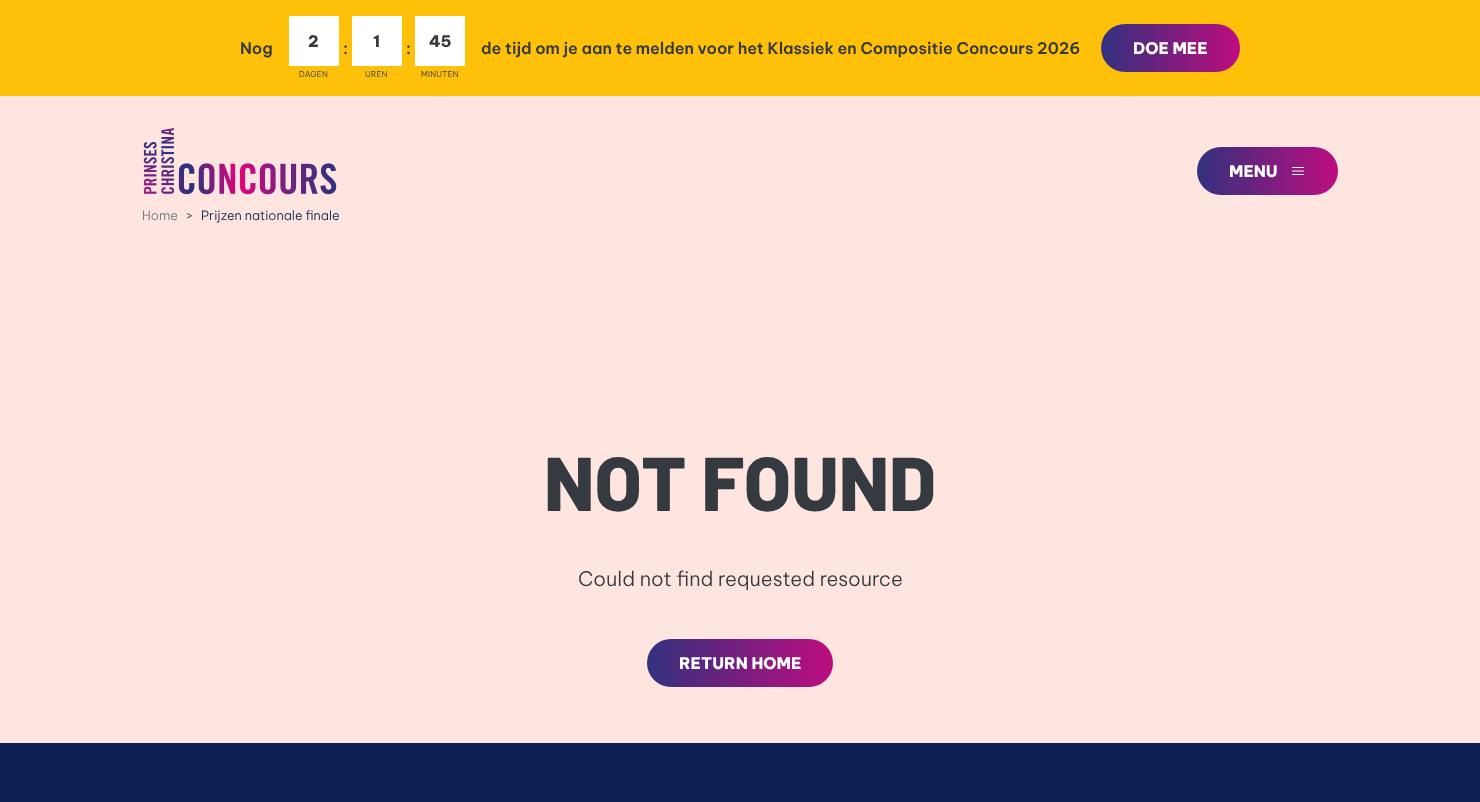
<svg xmlns="http://www.w3.org/2000/svg" width="1480" height="802" viewBox="0 0 1480 802">
  <defs>
    <linearGradient id="g1" gradientUnits="userSpaceOnUse" x1="1101" y1="48" x2="1240" y2="48"><stop offset="0" stop-color="rgb(50,49,126)"/><stop offset="1" stop-color="rgb(189,12,127)"/></linearGradient>
    <linearGradient id="g2" gradientUnits="userSpaceOnUse" x1="1197" y1="171" x2="1338" y2="171"><stop offset="0" stop-color="rgb(50,49,126)"/><stop offset="1" stop-color="rgb(189,12,127)"/></linearGradient>
    <linearGradient id="g3" gradientUnits="userSpaceOnUse" x1="647" y1="663" x2="833" y2="663"><stop offset="0" stop-color="rgb(50,49,126)"/><stop offset="1" stop-color="rgb(189,12,127)"/></linearGradient>
  </defs>
  <rect width="100%" height="100%" fill="rgb(254,229,224)"/>
  <rect x="0" y="0" width="1480" height="96" fill="rgb(255,192,9)"/>
  <text x="240" y="54" font-family="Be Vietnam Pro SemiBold" font-size="16" font-weight="600" fill="rgb(52,58,64)">Nog</text>
  <rect x="289" y="16" width="50" height="50" fill="rgb(255,255,255)"/>
  <text x="308" y="47" font-family="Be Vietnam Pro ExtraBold" font-size="16" font-weight="800" fill="rgb(52,58,64)">2</text>
  <text x="299" y="77" font-family="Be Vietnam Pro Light" font-size="8" font-weight="300" letter-spacing="0.25" fill="rgb(52,58,64)">DAGEN</text>
  <text x="343" y="54" font-family="Be Vietnam Pro SemiBold" font-size="16" font-weight="600" fill="rgb(52,58,64)">:</text>
  <rect x="352" y="16" width="50" height="50" fill="rgb(255,255,255)"/>
  <text x="373" y="47" font-family="Be Vietnam Pro ExtraBold" font-size="16" font-weight="800" fill="rgb(52,58,64)">1</text>
  <text x="365" y="77" font-family="Be Vietnam Pro Light" font-size="8" font-weight="300" letter-spacing="0.25" fill="rgb(52,58,64)">UREN</text>
  <text x="406" y="54" font-family="Be Vietnam Pro SemiBold" font-size="16" font-weight="600" fill="rgb(52,58,64)">:</text>
  <rect x="415" y="16" width="50" height="50" fill="rgb(255,255,255)"/>
  <text x="429" y="47" font-family="Be Vietnam Pro ExtraBold" font-size="16" font-weight="800" fill="rgb(52,58,64)">45</text>
  <text x="421" y="77" font-family="Be Vietnam Pro Light" font-size="8" font-weight="300" letter-spacing="0.25" fill="rgb(52,58,64)">MINUTEN</text>
  <text x="481" y="54" font-family="Be Vietnam Pro SemiBold" font-size="16" font-weight="600" fill="rgb(52,58,64)">de tijd om je aan te melden voor het Klassiek en Compositie Concours 2026</text>
  <rect x="1101" y="24" width="139" height="48" rx="24" fill="url(#g1)"/>
  <text x="1133" y="54" font-family="Be Vietnam Pro ExtraBold" font-size="16" font-weight="800" fill="rgb(255,255,255)">DOE MEE</text>
  <image x="143" y="128" width="194" height="67" href="pic1.png"/>
  <rect x="1197" y="147" width="141" height="48" rx="24" fill="url(#g2)"/>
  <text x="1229" y="177" font-family="Be Vietnam Pro ExtraBold" font-size="16" font-weight="800" fill="rgb(255,255,255)">MENU</text>
  <image x="1292" y="167" width="12" height="8" href="pic2.png"/>
  <text x="142" y="220" font-family="Be Vietnam Pro Light" font-size="12.75" font-weight="300" fill="rgb(114,119,123)">Home</text>
  <text x="186" y="220" font-family="Be Vietnam Pro Light" font-size="12.75" font-weight="300" fill="rgb(52,58,64)">&gt;</text>
  <text x="201" y="220" font-family="Be Vietnam Pro Light" font-size="12.75" font-weight="300" fill="rgb(14,31,83)">Prijzen nationale finale</text>
  <text x="544" y="511" font-family="Barlow" font-size="76.25" font-weight="800" fill="rgb(52,58,64)">NOT FOUND</text>
  <text x="578" y="586" font-family="Be Vietnam Pro Light" font-size="20" font-weight="300" fill="rgb(52,58,64)">Could not find requested resource</text>
  <rect x="647" y="639" width="186" height="48" rx="24" fill="url(#g3)"/>
  <text x="679" y="669" font-family="Be Vietnam Pro ExtraBold" font-size="16" font-weight="800" fill="rgb(255,255,255)">RETURN HOME</text>
  <rect x="0" y="743" width="1480" height="59" fill="rgb(14,31,83)"/>
</svg>
